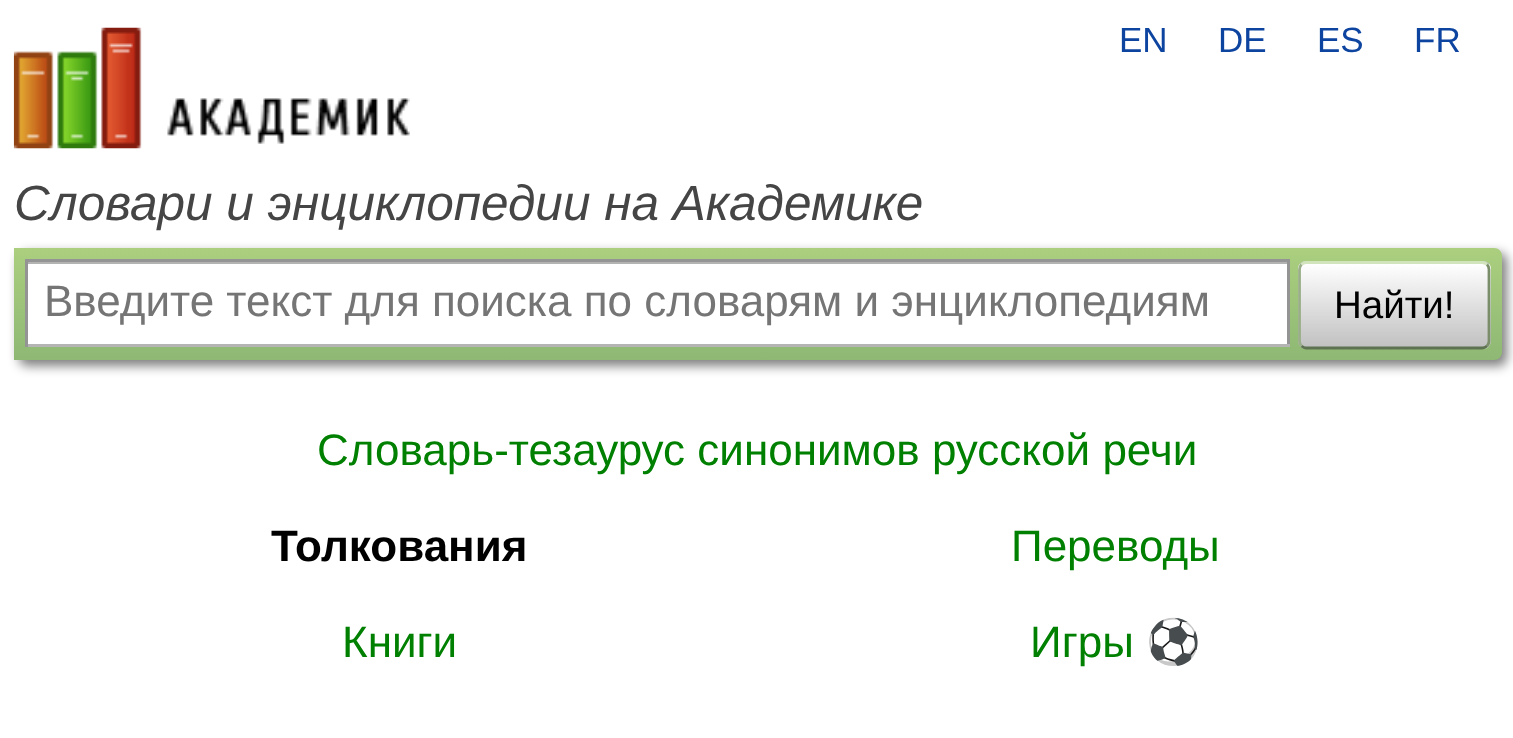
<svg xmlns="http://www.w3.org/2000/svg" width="1513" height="738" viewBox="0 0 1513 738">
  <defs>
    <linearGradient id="g1" gradientUnits="userSpaceOnUse" x1="758" y1="247" x2="758" y2="360"><stop offset="0" stop-color="rgb(171,207,126)"/><stop offset="1" stop-color="rgb(142,184,116)"/></linearGradient>
    <clipPath id="clip1"><rect x="1298" y="261" width="193" height="88" rx="8"/></clipPath>
    <linearGradient id="g2" gradientUnits="userSpaceOnUse" x1="1394" y1="182" x2="1394" y2="264"><stop offset="0" stop-color="rgb(255,255,255)"/><stop offset="1" stop-color="rgb(193,193,193)"/></linearGradient>
    <linearGradient id="g3" gradientUnits="userSpaceOnUse" x1="1394" y1="264" x2="1394" y2="347"><stop offset="0" stop-color="rgb(255,255,255)"/><stop offset="1" stop-color="rgb(193,193,193)"/></linearGradient>
    <linearGradient id="g4" gradientUnits="userSpaceOnUse" x1="1394" y1="347" x2="1394" y2="429"><stop offset="0" stop-color="rgb(255,255,255)"/><stop offset="1" stop-color="rgb(193,193,193)"/></linearGradient>
  </defs>
  <rect width="100%" height="100%" fill="rgb(255,255,255)"/>
  <image x="13" y="27" width="397" height="122" href="pic1.png"/>
  <g font-family="Liberation Sans" font-size="35" fill="rgb(13,68,160)">
    <text x="1119" y="52">EN</text>
    <text x="1218" y="52">DE</text>
    <text x="1317" y="52">ES</text>
    <text x="1414" y="52">FR</text>
  </g>
  <text x="14" y="220" font-family="Liberation Sans" font-size="49.5" font-style="italic" fill="rgb(69,69,69)">Словари и энциклопедии на Академике</text>
  <rect x="19" y="253" width="1488" height="113" rx="8" fill="rgba(0,0,0,0.5)" filter="blur(5.5px)"/>
  <path d="M14 248H1494C1498.5 248 1502 251.5 1502 256V352C1502 356.5 1498.5 360 1494 360H14Z" fill="url(#g1)"/>
  <rect x="28" y="264" width="1259" height="80" fill="rgb(255,255,255)"/>
  <rect x="28" y="262" width="1259" height="2" fill="rgb(179,179,179)"/>
  <rect x="25" y="259" width="1265" height="3" fill="rgb(148,148,148)"/>
  <rect x="1287" y="259" width="3" height="88" fill="rgb(148,148,148)"/>
  <rect x="25" y="344" width="1265" height="3" fill="rgb(180,180,180)"/>
  <rect x="25" y="259" width="3" height="88" fill="rgb(148,148,148)"/>
  <text x="44" y="316" font-family="Liberation Sans" font-size="44" fill="rgb(117,117,117)">Введите текст для поиска по словарям и энциклопедиям</text>
  <g clip-path="url(#clip1)">
    <rect x="1298" y="261" width="193" height="3" fill="url(#g2)"/>
    <rect x="1298" y="264" width="193" height="83" fill="url(#g3)"/>
    <rect x="1298" y="347" width="193" height="2" fill="url(#g4)"/>
  </g>
  <path d="M1301.5 264.5C1302.5 263.5 1304.5 262.5 1306 262.5H1482C1484 262.5 1486 263.5 1487 264.5" fill="none" stroke="rgb(209,228,188)" stroke-width="2.8"/>
  <path d="M1487 264.5C1488.5 266 1489 267.5 1489 269.5V341C1489 343 1488.5 344.5 1487 346" fill="none" stroke="rgb(122,142,105)" stroke-width="2.8"/>
  <path d="M1487 346C1486 347 1484 348 1482 348H1306C1304.5 348 1302.5 347 1301.5 346" fill="none" stroke="rgb(93,114,80)" stroke-width="2.8"/>
  <path d="M1301.5 346C1300 344.5 1299.5 343 1299.5 341V269.5C1299.5 267.5 1300 266 1301.5 264.5" fill="none" stroke="rgb(154,174,137)" stroke-width="2.8"/>
  <text x="1334" y="318" font-family="Liberation Sans" font-size="38.5" fill="rgb(0,0,0)">Найти!</text>
  <text x="317" y="465" font-family="Liberation Sans" font-size="44" fill="rgb(0,128,0)">Словарь-тезаурус синонимов русской речи</text>
  <text x="271" y="561" font-family="Liberation Sans" font-size="44" font-weight="bold" fill="rgb(0,0,0)">Толкования</text>
  <g font-family="Liberation Sans" font-size="44" fill="rgb(0,128,0)">
    <text x="1011" y="561">Переводы</text>
    <text x="342" y="657">Книги</text>
    <text x="1030" y="657">Игры</text>
  </g>
  <text x="1146" y="657" font-family="Noto Color Emoji" font-size="44" fill="rgb(0,128,0)">⚽</text>
</svg>
